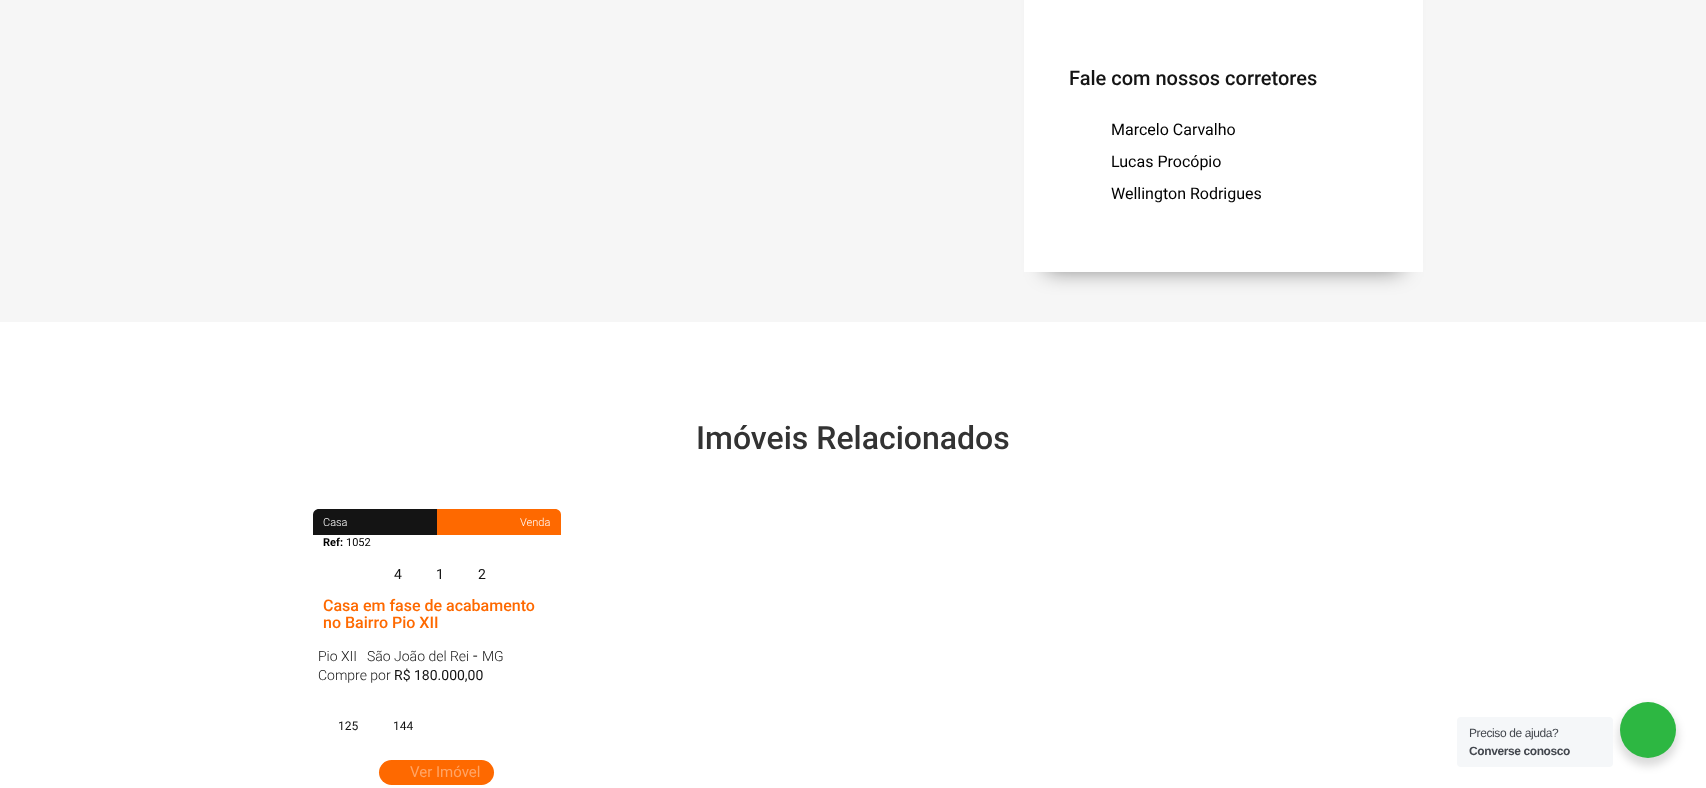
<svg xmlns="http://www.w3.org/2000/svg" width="1706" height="788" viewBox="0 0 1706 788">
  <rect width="100%" height="100%" fill="rgb(246,246,246)"/>
  <rect x="1046" y="-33" width="355" height="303" fill="rgba(0,0,0,0.5)" filter="blur(11px)"/>
  <rect x="1024" y="0" width="399" height="272" fill="rgb(255,255,255)"/>
  <text x="1069" y="85" font-family="Roboto" font-size="20" font-weight="500" fill="rgb(20,20,20)">Fale com nossos corretores</text>
  <g font-family="Roboto" font-size="16" fill="rgb(0,0,0)">
    <text x="1111" y="135">Marcelo Carvalho</text>
    <text x="1111" y="167">Lucas Procópio</text>
    <text x="1111" y="199">Wellington Rodrigues</text>
  </g>
  <rect x="0" y="322" width="1706" height="466" fill="rgb(255,255,255)"/>
  <text x="696" y="449" font-family="Roboto" font-size="32" font-weight="500" fill="rgb(51,51,51)">Imóveis Relacionados</text>
  <path d="M319 509H437V535H313V515C313 511.5 315.5 509 319 509Z" fill="rgb(20,20,20)"/>
  <text x="323" y="526" font-family="Roboto" font-size="11" font-weight="300" fill="rgb(255,255,255)">Casa</text>
  <path d="M437 509H555C558.5 509 561 511.5 561 515V535H437Z" fill="rgb(254,105,0)"/>
  <text x="520" y="526" font-family="Roboto" font-size="11" font-weight="300" fill="rgb(255,255,255)">Venda</text>
  <text x="323" y="546" font-family="Roboto" font-size="11" font-weight="bold" fill="rgb(0,0,0)">Ref:</text>
  <text x="346" y="546" font-family="Roboto" font-size="11" fill="rgb(0,0,0)">1052</text>
  <g font-family="Roboto" font-size="14" fill="rgb(20,20,20)">
    <text x="394" y="579">4</text>
    <text x="436" y="579">1</text>
    <text x="478" y="579">2</text>
  </g>
  <g font-family="Roboto" font-size="16" font-weight="500" fill="rgb(254,105,0)">
    <text>
      <tspan x="323" y="611">Casa em fase de acabamento</tspan>
      <tspan x="323" y="628">no Bairro Pio XII</tspan>
    </text>
  </g>
  <g font-family="Roboto" font-size="14" font-weight="300" fill="rgb(20,20,20)">
    <text x="318" y="661">Pio XII</text>
    <text x="367" y="661">São João del Rei</text>
  </g>
  <text x="473" y="661" font-family="Roboto" font-size="16" fill="rgb(51,51,51)">-</text>
  <g font-family="Roboto" font-size="14" font-weight="300" fill="rgb(20,20,20)">
    <text x="482" y="661">MG</text>
    <text x="318" y="680">Compre por</text>
  </g>
  <text x="394" y="680" font-family="Roboto" font-size="14" fill="rgb(20,20,20)">R$ 180.000,00</text>
  <g font-family="Roboto" font-size="12" fill="rgb(20,20,20)">
    <text x="338" y="730">125</text>
    <text x="393" y="730">144</text>
  </g>
  <rect x="379" y="760" width="115" height="25" rx="12.5" fill="rgb(254,105,0)"/>
  <text x="410" y="777" font-family="Roboto" font-size="15" fill="rgb(255,165,102)">Ver Imóvel</text>
  <rect x="1618" y="706" width="60" height="60" rx="30" fill="rgba(0,0,0,0.14)" filter="blur(4px)"/>
  <rect x="1457" y="717" width="156" height="50" rx="4" fill="rgb(245,247,249)"/>
  <text x="1469" y="737" font-family="Liberation Sans" font-size="12" letter-spacing="-0.4" fill="rgb(67,71,78)">Preciso de ajuda?</text>
  <text x="1469" y="755" font-family="Liberation Sans" font-size="12" font-weight="bold" letter-spacing="-0.4" fill="rgb(67,71,78)">Converse conosco</text>
  <circle cx="1648" cy="730" r="28" fill="rgb(45,183,66)"/>
</svg>
